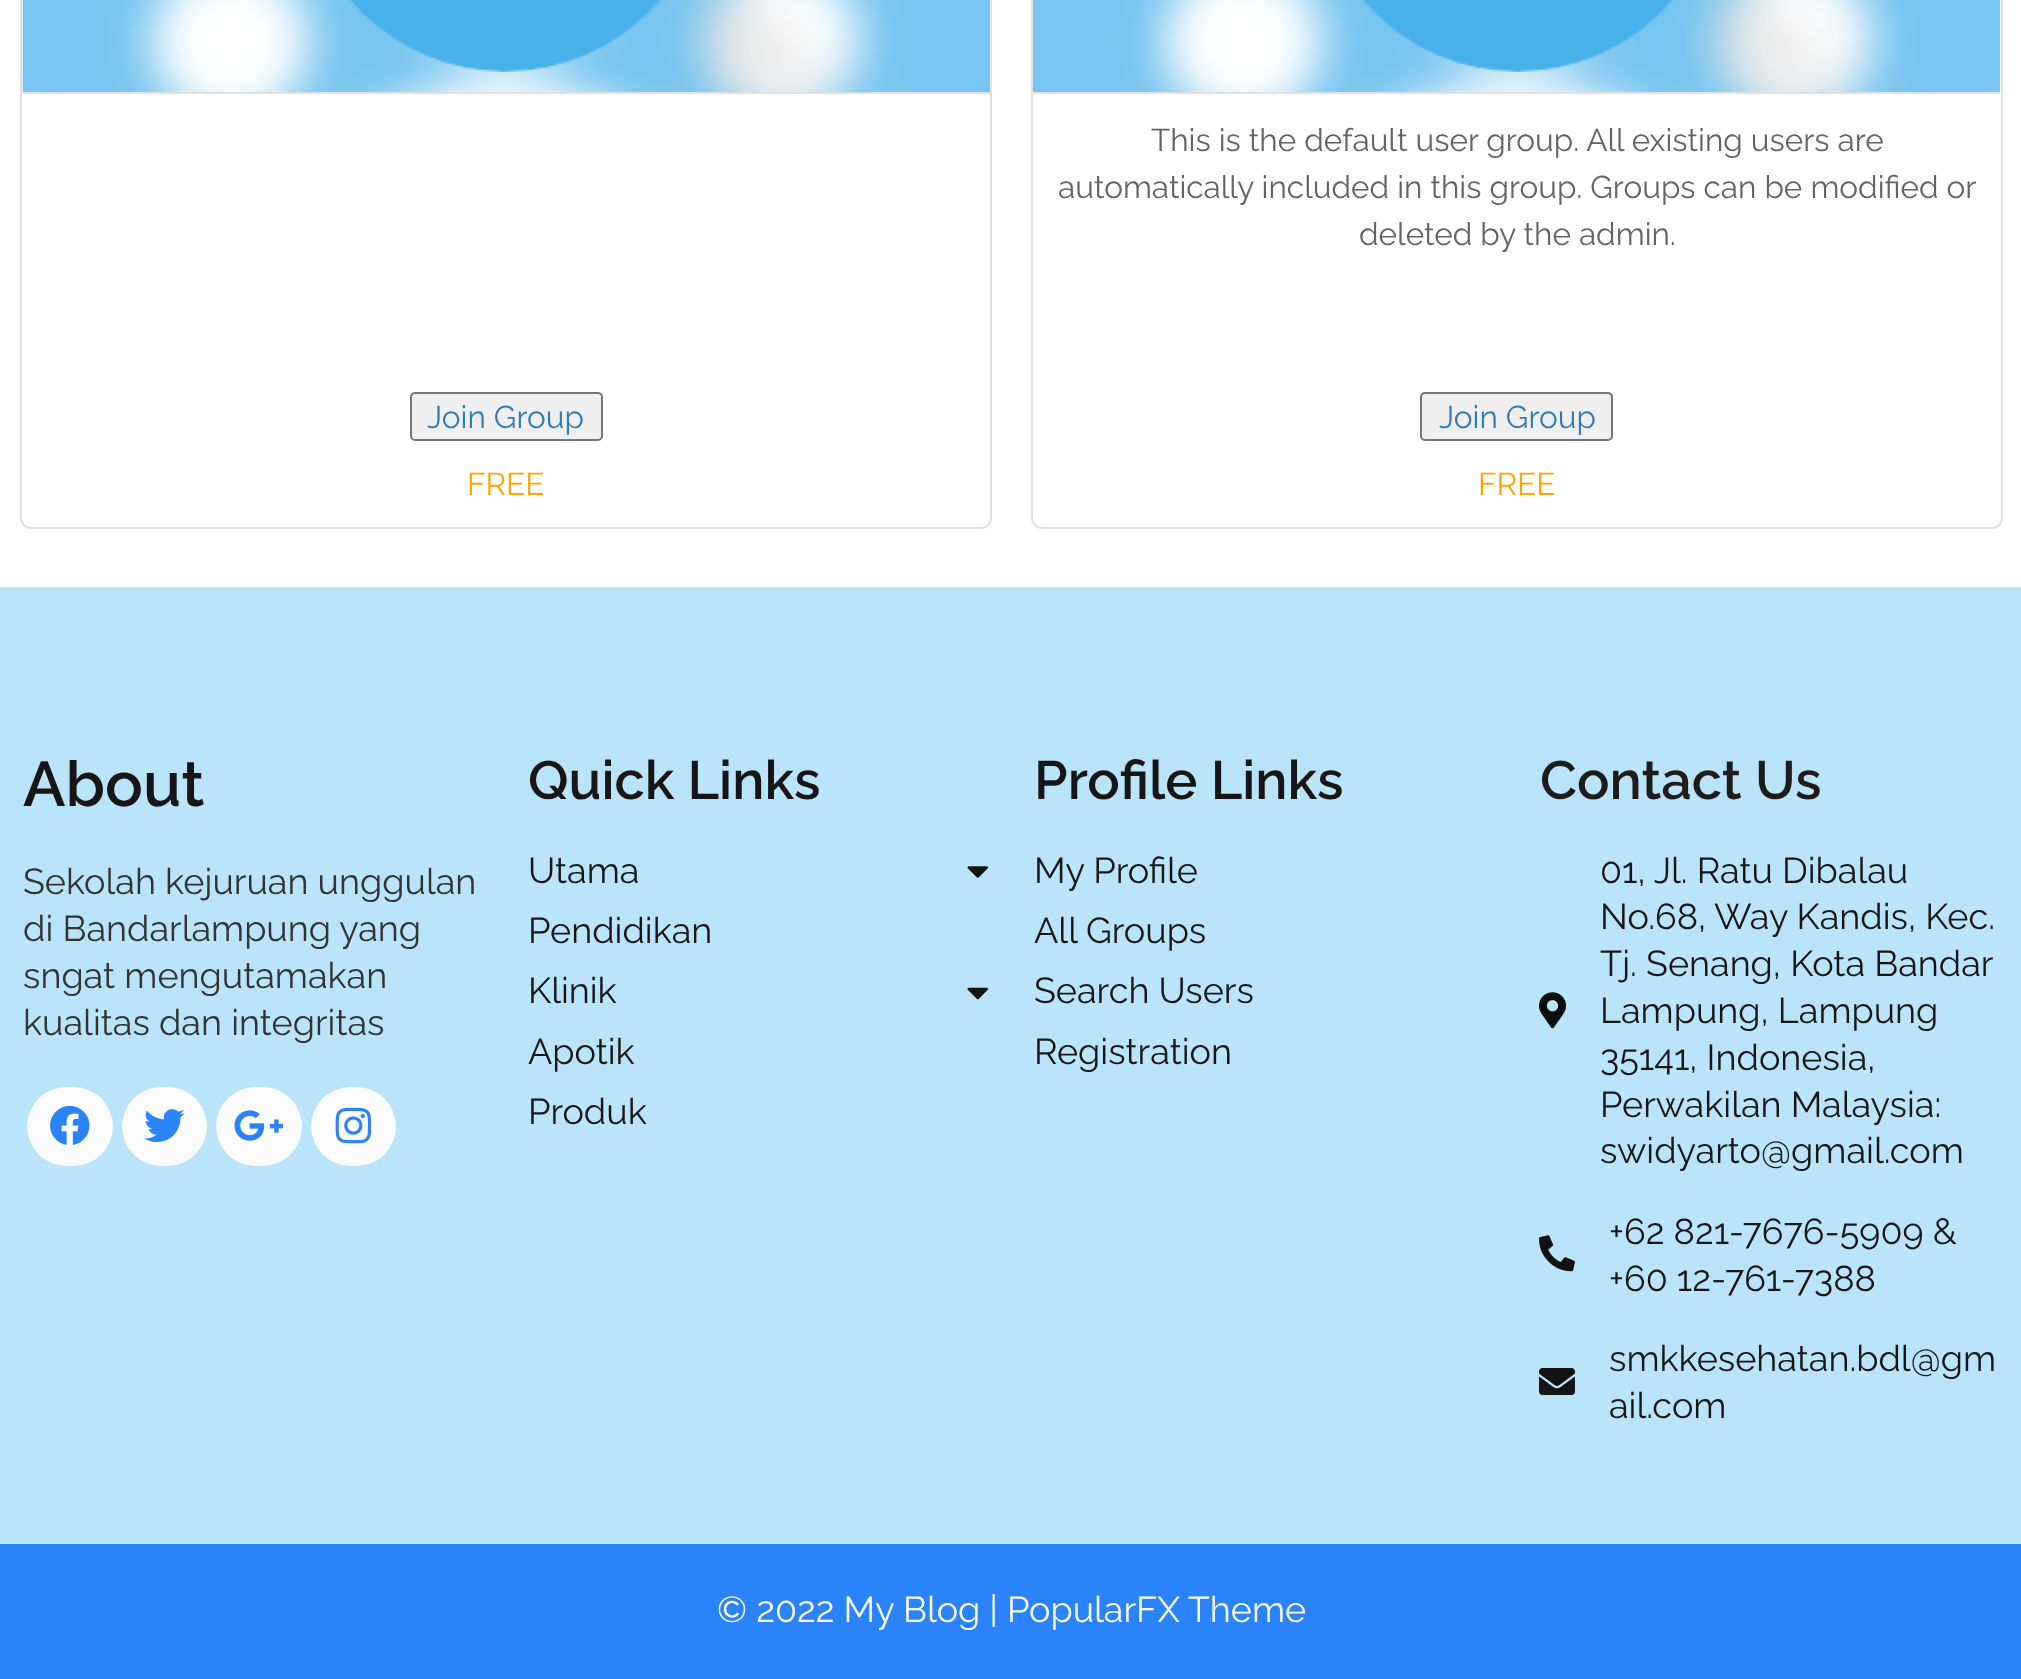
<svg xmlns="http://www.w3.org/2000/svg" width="2021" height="1679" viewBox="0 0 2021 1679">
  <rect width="100%" height="100%" fill="rgb(255,255,255)"/>
  <rect x="21" y="-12" width="970" height="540" rx="10" fill="none" stroke="rgb(225,225,225)" stroke-width="2"/>
  <rect x="23" y="92" width="967" height="2" fill="rgb(225,225,225)"/>
  <image x="22" y="0" width="968" height="92" href="pic1.png"/>
  <image x="349" y="0" width="313" height="72" href="pic2.png"/>
  <rect x="411" y="393" width="191" height="47" rx="4" fill="rgb(239,239,239)" stroke="rgb(118,118,118)" stroke-width="2"/>
  <text x="427" y="428" font-family="Raleway" font-size="31.5" fill="rgb(51,122,183)">Join Group</text>
  <text x="467" y="495" font-family="Raleway" font-size="31.5" fill="rgb(255,165,0)">FREE</text>
  <rect x="1032" y="-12" width="970" height="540" rx="10" fill="none" stroke="rgb(225,225,225)" stroke-width="2"/>
  <rect x="1033" y="92" width="967" height="2" fill="rgb(225,225,225)"/>
  <image x="1032" y="0" width="969" height="92" href="pic3.png"/>
  <image x="1361" y="0" width="313" height="72" href="pic4.png"/>
  <g font-family="Raleway" font-size="31.5" fill="rgb(100,100,100)">
    <text x="1151" y="151">This is the default user group. All existing users are</text>
    <text x="1058" y="198">automatically included in this group. Groups can be modified or</text>
    <text x="1359" y="245">deleted by the admin.</text>
  </g>
  <rect x="1421" y="393" width="191" height="47" rx="4" fill="rgb(239,239,239)" stroke="rgb(118,118,118)" stroke-width="2"/>
  <text x="1439" y="428" font-family="Raleway" font-size="31.5" fill="rgb(51,122,183)">Join Group</text>
  <text x="1478" y="495" font-family="Raleway" font-size="31.5" fill="rgb(255,165,0)">FREE</text>
  <rect x="0" y="587" width="2021" height="957" fill="rgb(186,228,250)"/>
  <text x="23" y="806" font-family="Raleway" font-size="63" font-weight="600" fill="rgb(23,21,21)">About</text>
  <g font-family="Raleway" font-size="36" fill="rgb(51,51,51)">
    <text>
      <tspan x="23" y="894">Sekolah kejuruan unggulan</tspan>
      <tspan x="23" y="941">di Bandarlampung yang</tspan>
      <tspan x="23" y="988">sngat mengutamakan</tspan>
      <tspan x="23" y="1035">kualitas dan integritas</tspan>
    </text>
  </g>
  <rect x="27" y="1087" width="86" height="79" rx="39.5" fill="rgb(251,251,251)"/>
  <image x="50" y="1105" width="40" height="40" href="pic5.png"/>
  <rect x="122" y="1087" width="85" height="79" rx="39.5" fill="rgb(251,251,251)"/>
  <image x="144" y="1109" width="41" height="33" href="pic6.png"/>
  <rect x="216" y="1087" width="86" height="79" rx="39.5" fill="rgb(251,251,251)"/>
  <image x="234" y="1110" width="50" height="31" href="pic7.png"/>
  <rect x="311" y="1087" width="85" height="79" rx="39.5" fill="rgb(251,251,251)"/>
  <image x="335" y="1107" width="37" height="37" href="pic8.png"/>
  <text x="528" y="799" font-family="Raleway" font-size="54" font-weight="600" fill="rgb(23,21,21)">Quick Links</text>
  <text x="528" y="883" font-family="Raleway" font-size="36" fill="rgb(23,21,21)">Utama</text>
  <image x="967" y="866" width="22" height="12" href="pic9.png"/>
  <g font-family="Raleway" font-size="36" fill="rgb(23,21,21)">
    <text>
      <tspan x="528" y="943">Pendidikan</tspan>
      <tspan x="528" y="1003">Klinik</tspan>
    </text>
  </g>
  <image x="967" y="987" width="21" height="13" href="pic10.png"/>
  <g font-family="Raleway" font-size="36" fill="rgb(23,21,21)">
    <text>
      <tspan x="528" y="1064">Apotik</tspan>
      <tspan x="528" y="1124">Produk</tspan>
    </text>
  </g>
  <text x="1034" y="799" font-family="Raleway" font-size="54" font-weight="600" fill="rgb(23,21,21)">Profile Links</text>
  <g font-family="Raleway" font-size="36" fill="rgb(23,21,21)">
    <text>
      <tspan x="1034" y="883">My Profile</tspan>
      <tspan x="1034" y="943">All Groups</tspan>
      <tspan x="1034" y="1003">Search Users</tspan>
      <tspan x="1034" y="1064">Registration</tspan>
    </text>
  </g>
  <text x="1540" y="799" font-family="Raleway" font-size="54" font-weight="600" fill="rgb(32,27,27)">Contact Us</text>
  <image x="1539" y="992" width="27" height="37" href="pic11.png"/>
  <g font-family="Raleway" font-size="36" fill="rgb(23,21,21)">
    <text>
      <tspan x="1600" y="883">01, Jl. Ratu Dibalau</tspan>
      <tspan x="1600" y="929">No.68, Way Kandis, Kec.</tspan>
      <tspan x="1600" y="976">Tj. Senang, Kota Bandar</tspan>
      <tspan x="1600" y="1023">Lampung, Lampung</tspan>
      <tspan x="1600" y="1070">35141, Indonesia,</tspan>
      <tspan x="1600" y="1117">Perwakilan Malaysia:</tspan>
      <tspan x="1600" y="1163">swidyarto@gmail.com</tspan>
    </text>
  </g>
  <image x="1539" y="1235" width="36" height="37" href="pic12.png"/>
  <g font-family="Raleway" font-size="36" fill="rgb(23,21,21)">
    <text>
      <tspan x="1609" y="1244">+62 821-7676-5909 &amp;</tspan>
      <tspan x="1609" y="1291">+60 12-761-7388</tspan>
    </text>
  </g>
  <image x="1539" y="1368" width="36" height="27" href="pic13.png"/>
  <g font-family="Raleway" font-size="36" fill="rgb(23,21,21)">
    <text>
      <tspan x="1609" y="1371">smkkesehatan.bdl@gm</tspan>
      <tspan x="1609" y="1418">ail.com</tspan>
    </text>
  </g>
  <rect x="0" y="1544" width="2021" height="135" fill="rgb(42,131,249)"/>
  <text x="717" y="1622" font-family="Raleway" font-size="36" fill="rgb(250,250,250)">© 2022 My Blog | PopularFX Theme</text>
</svg>
